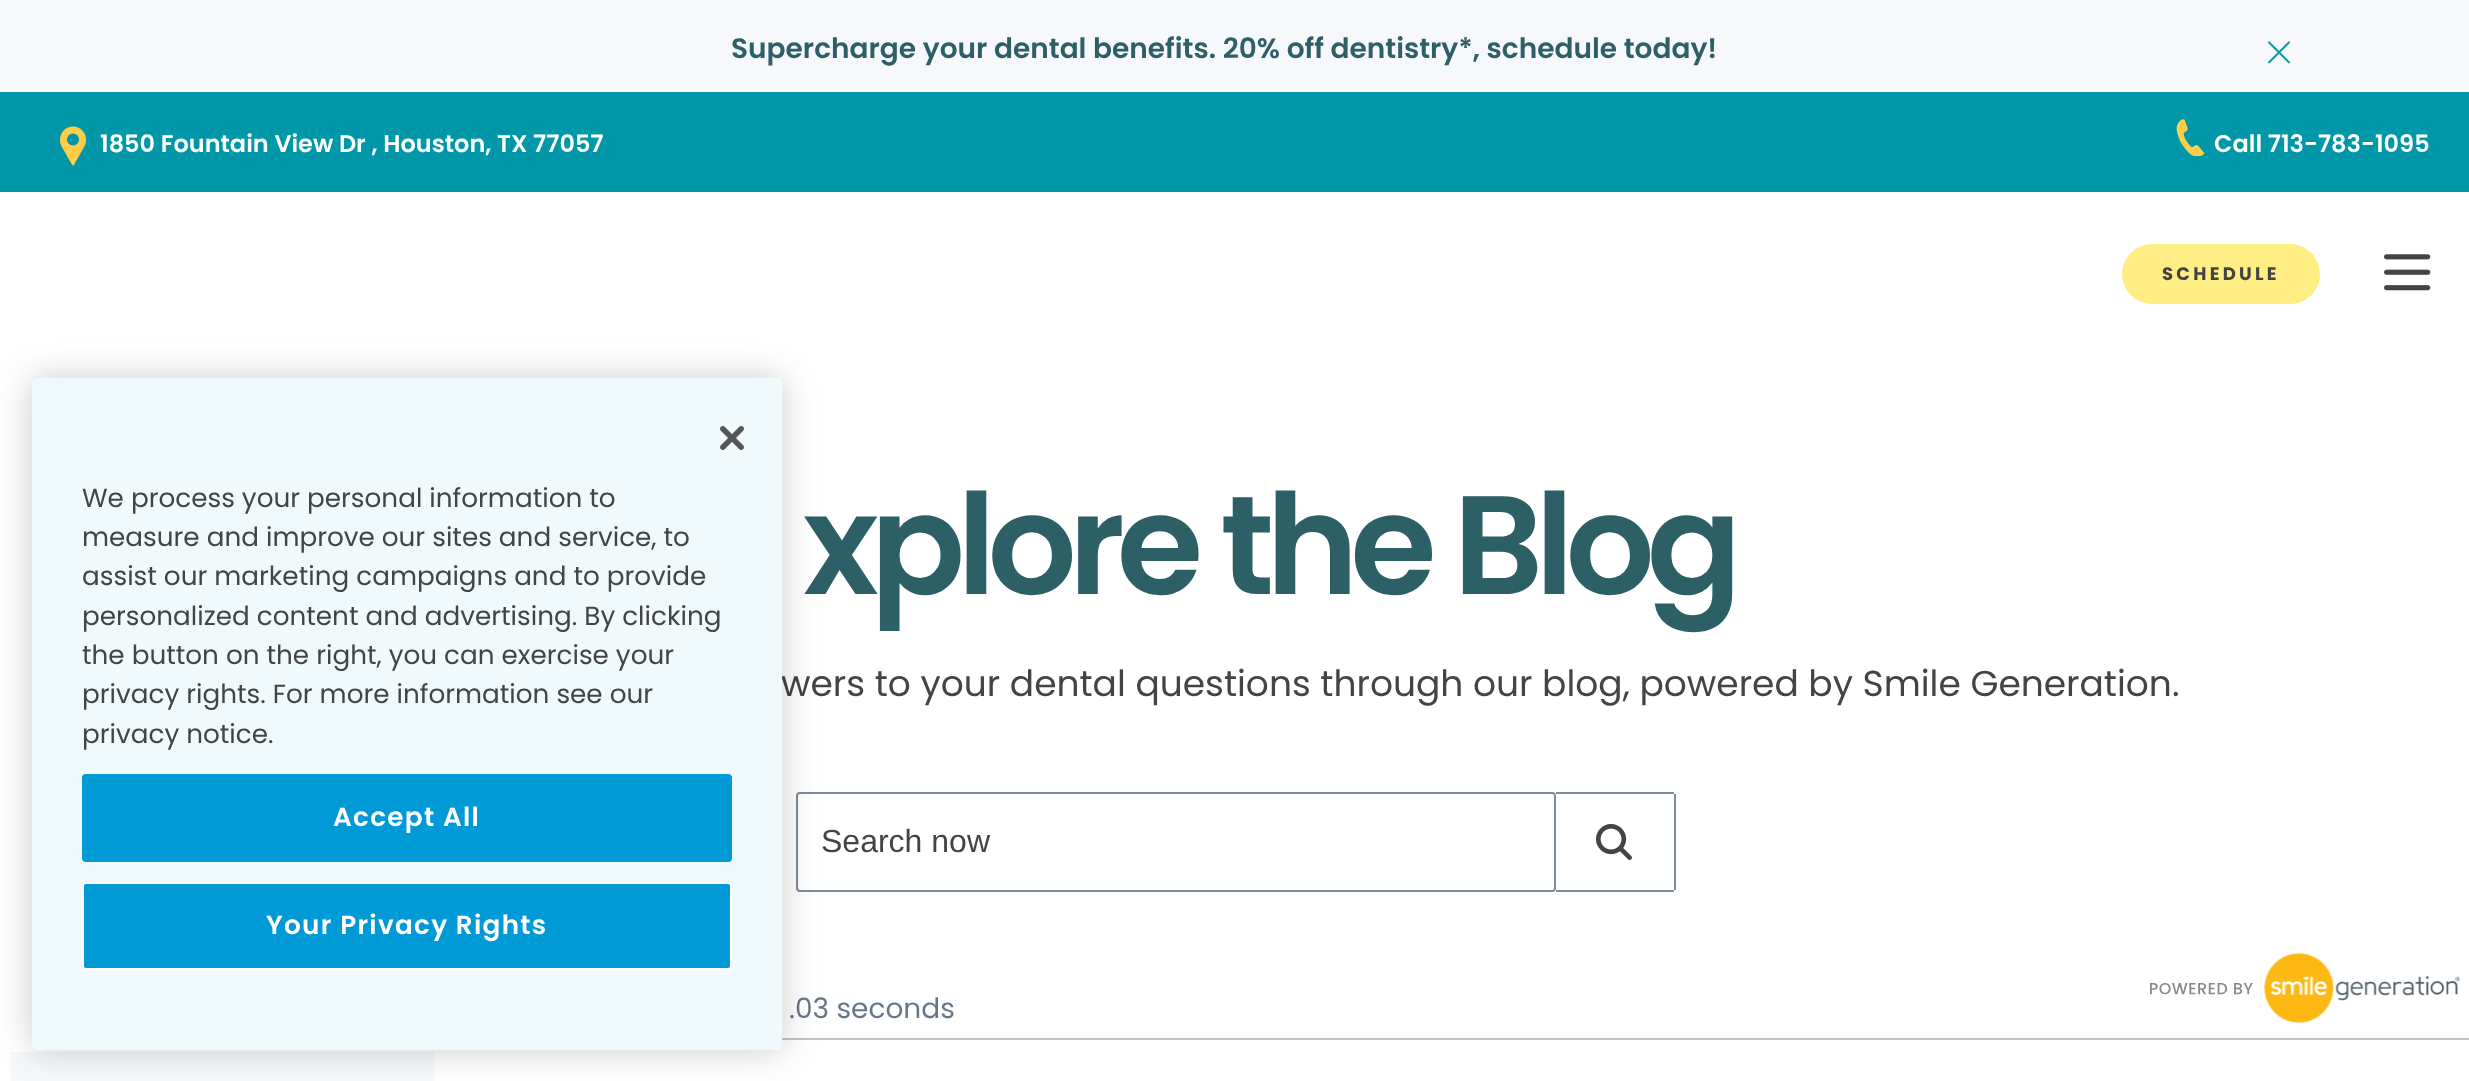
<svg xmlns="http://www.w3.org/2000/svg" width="2469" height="1081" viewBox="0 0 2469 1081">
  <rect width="100%" height="100%" fill="rgb(255,255,255)"/>
  <rect x="0" y="0" width="2469" height="92" fill="rgb(247,248,252)"/>
  <text x="731" y="58" font-family="Poppins" font-size="28" font-weight="600" fill="rgb(45,95,102)">Supercharge your dental benefits. 20% off dentistry*, schedule today!</text>
  <image x="2268" y="41" width="22" height="23" href="pic1.png"/>
  <rect x="0" y="92" width="2469" height="100" fill="rgb(0,151,168)"/>
  <image x="60" y="126" width="26" height="40" href="pic2.png"/>
  <text x="100" y="152" font-family="Poppins" font-size="24" font-weight="600" fill="rgb(255,255,255)">1850 Fountain View Dr , Houston, TX 77057</text>
  <image x="2176" y="119" width="29" height="37" href="pic3.png"/>
  <text x="2214" y="152" font-family="Poppins" font-size="24" font-weight="600" fill="rgb(255,255,255)">Call 713-783-1095</text>
  <rect x="2122" y="244" width="198" height="60" rx="30" fill="rgb(255,238,132)"/>
  <text x="2162" y="280" font-family="Poppins" font-size="18" font-weight="bold" letter-spacing="3.25" fill="rgb(68,68,68)">SCHEDULE</text>
  <image x="2384" y="254" width="47" height="37" href="pic4.png"/>
  <text x="803" y="594" font-family="Poppins" font-size="140" font-weight="600" letter-spacing="-8.3" fill="rgb(45,95,102)">xplore the Blog</text>
  <text x="781" y="696" font-family="Poppins" font-size="36" fill="rgb(68,68,68)">wers to your dental questions through our blog, powered by Smile Generation.</text>
  <rect x="797" y="793" width="758" height="98" rx="3" fill="none" stroke="rgb(126,140,154)" stroke-width="2"/>
  <text x="821" y="852" font-family="Liberation Sans" font-size="32" fill="rgb(68,68,68)">Search now</text>
  <rect x="1556" y="792" width="118" height="2" fill="rgb(126,140,154)"/>
  <rect x="1674" y="794" width="2" height="96" fill="rgb(126,140,154)"/>
  <rect x="1556" y="890" width="118" height="2" fill="rgb(126,140,154)"/>
  <image x="1596" y="824" width="36" height="36" href="pic5.png"/>
  <rect x="782" y="1038" width="1687" height="2" fill="rgb(188,195,202)"/>
  <text x="789" y="1018" font-family="Poppins" font-size="28" fill="rgb(103,118,139)">.03 seconds</text>
  <image x="2150" y="952" width="310" height="72" href="pic6.png"/>
  <rect x="10" y="1052" width="424" height="29" fill="rgb(247,248,252)"/>
  <rect x="32" y="378" width="750" height="672" rx="5" fill="rgba(0,0,0,0.2)" filter="blur(18px)"/>
  <rect x="32" y="378" width="750" height="672" rx="5" fill="rgb(240,250,252)"/>
  <image x="720" y="426" width="24" height="24" href="pic7.png"/>
  <g font-family="Poppins" font-size="26.25" fill="rgb(68,68,68)">
    <text>
      <tspan x="82" y="507">We process your personal information to</tspan>
      <tspan x="82" y="546">measure and improve our sites and service, to</tspan>
      <tspan x="82" y="585">assist our marketing campaigns and to provide</tspan>
      <tspan x="82" y="625">personalized content and advertising. By clicking</tspan>
      <tspan x="82" y="664">the button on the right, you can exercise your</tspan>
      <tspan x="82" y="703">privacy rights. For more information see our</tspan>
      <tspan x="82" y="743">privacy notice.</tspan>
    </text>
  </g>
  <rect x="83" y="775" width="648" height="86" rx="3" fill="rgb(0,155,215)" stroke="rgb(0,155,215)" stroke-width="2"/>
  <text x="333" y="826" font-family="Poppins" font-size="26.25" font-weight="600" letter-spacing="1.3" fill="rgb(255,255,255)">Accept All</text>
  <rect x="83" y="883" width="648" height="86" rx="3" fill="rgb(0,155,215)" stroke="rgb(255,255,255)" stroke-width="2"/>
  <text x="266" y="934" font-family="Poppins" font-size="26.25" font-weight="600" letter-spacing="1.3" fill="rgb(255,255,255)">Your Privacy Rights</text>
</svg>
